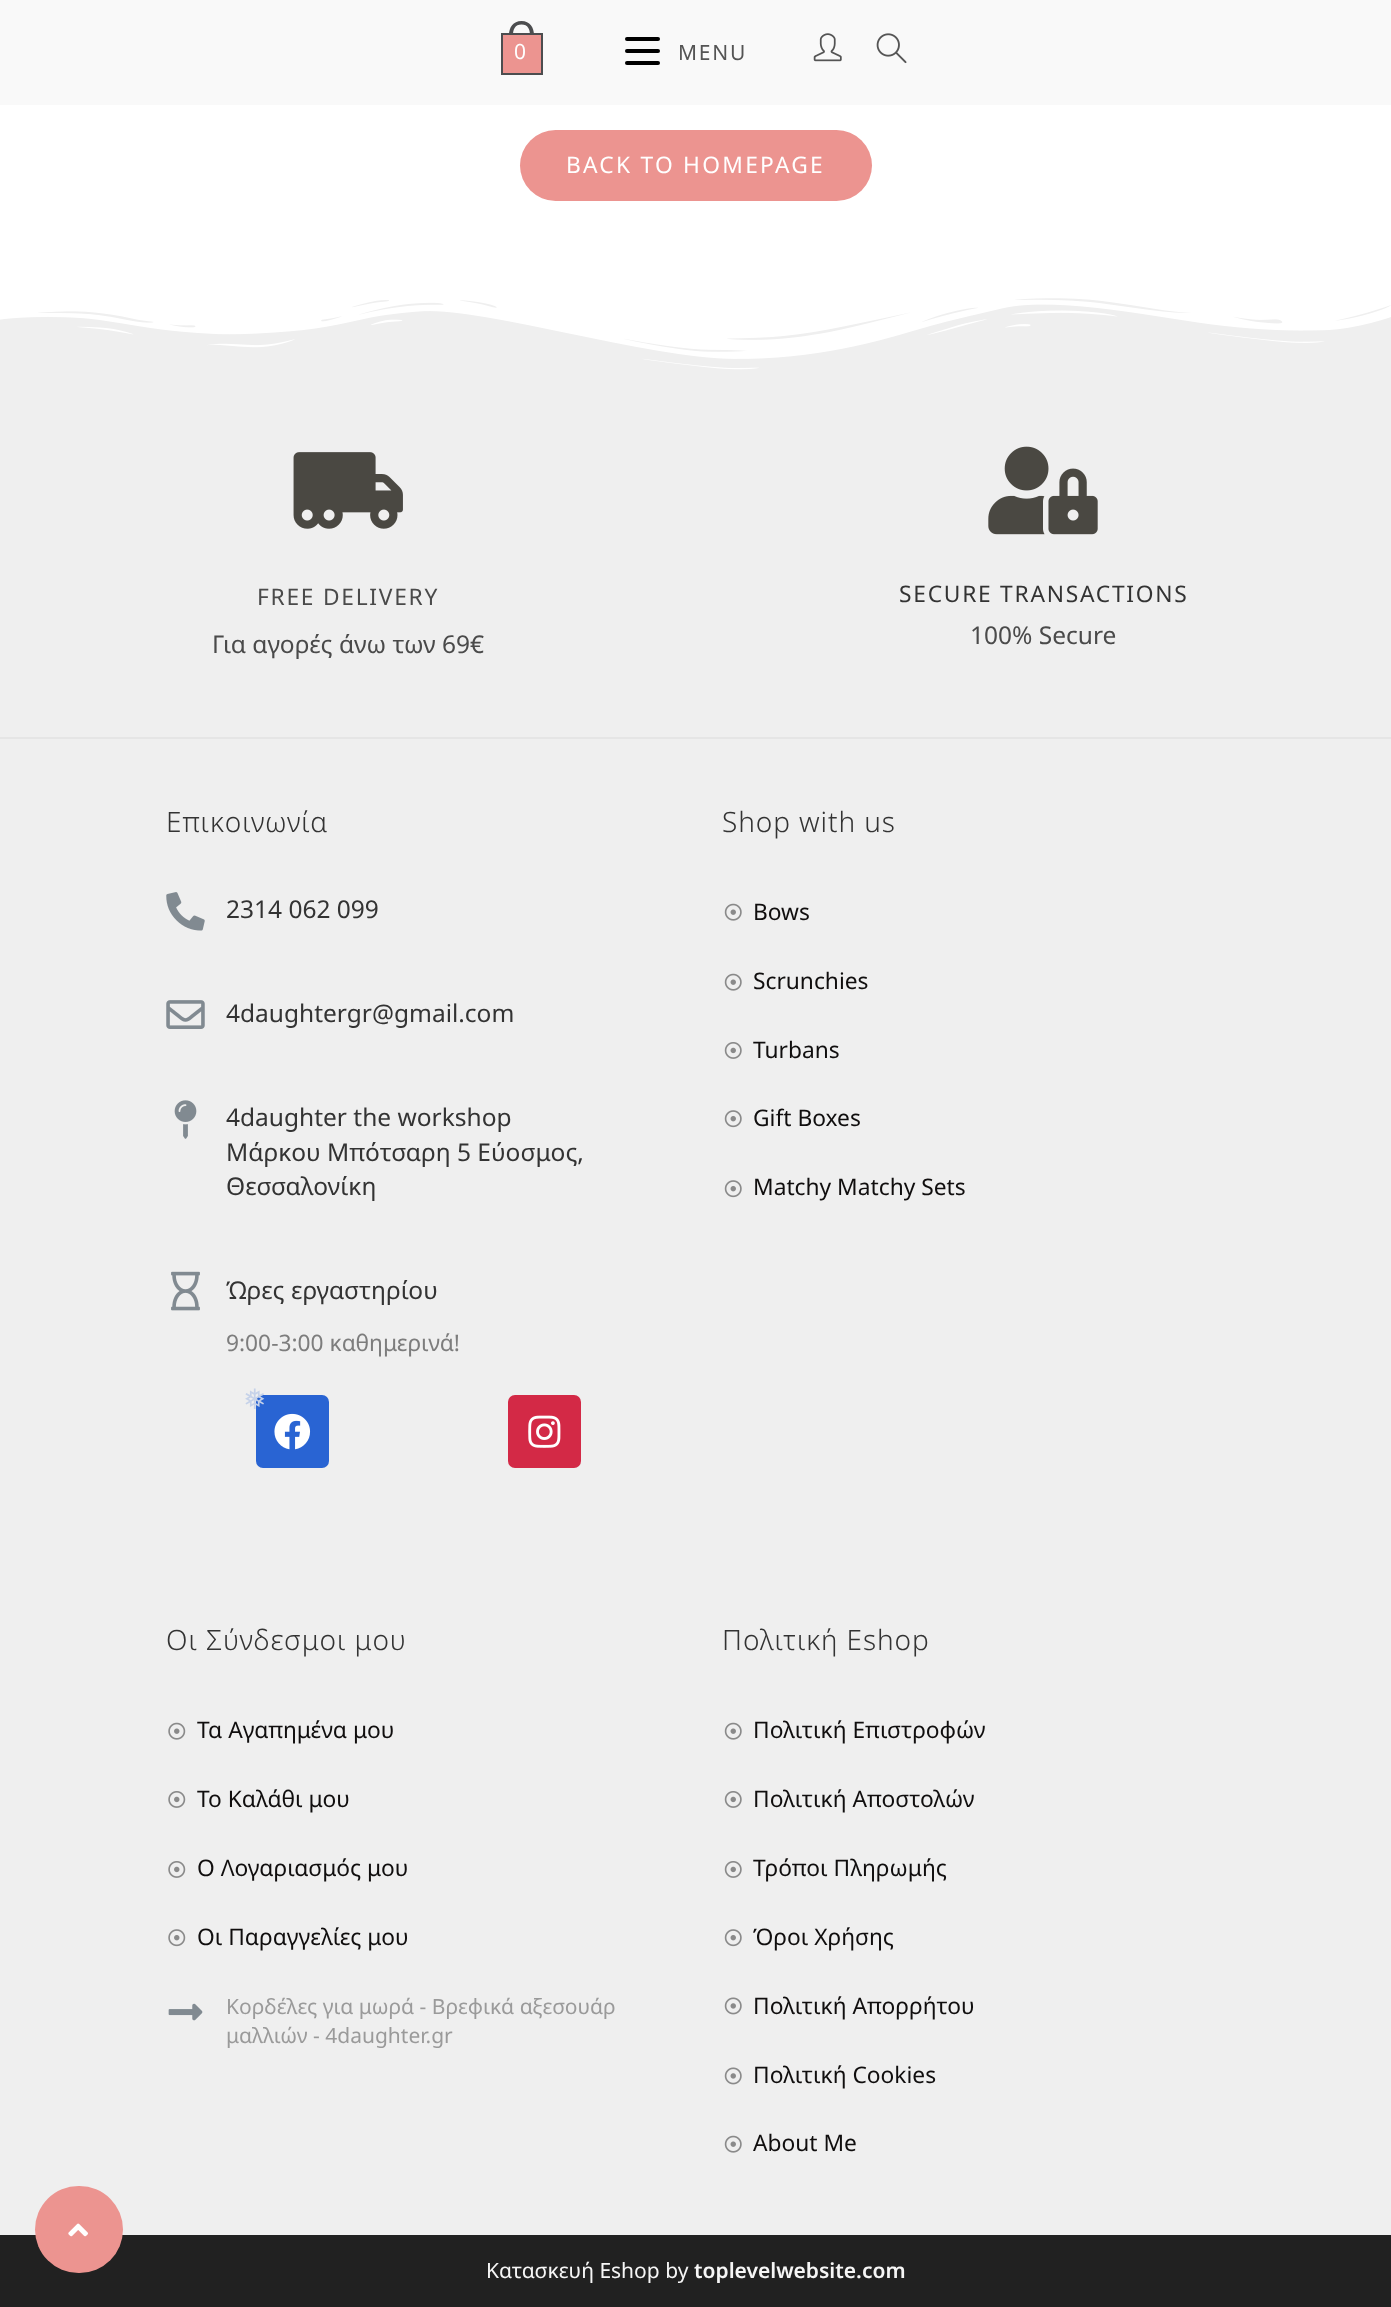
<svg xmlns="http://www.w3.org/2000/svg" width="1391" height="2307" viewBox="0 0 1391 2307">
  <rect width="100%" height="100%" fill="rgb(255,255,255)"/>
  <rect x="0" y="0" width="1391" height="105" fill="rgb(249,249,249)"/>
  <rect x="502" y="34" width="40" height="40" fill="rgb(236,148,144)" stroke="rgb(76,77,79)" stroke-width="2"/>
  <path d="M521.5 21C530 21 534 27.5 534 35H509C509 27.5 513 21 521.5 21ZM521.5 24.5C528 24.5 530 29.5 530 35H513C513 29.5 515 24.5 521.5 24.5Z" fill="rgb(76,77,79)" fill-rule="evenodd"/>
  <text x="514" y="59" font-family="Noto Sans" font-size="21" letter-spacing="1.75" fill="rgb(255,255,255)">0</text>
  <rect x="625" y="37" width="35" height="4" rx="2" fill="rgb(0,0,0)"/>
  <rect x="625" y="49" width="35" height="4" rx="2" fill="rgb(0,0,0)"/>
  <rect x="625" y="61" width="35" height="4" rx="2" fill="rgb(0,0,0)"/>
  <text x="678" y="60" font-family="Noto Sans" font-size="21" letter-spacing="1.75" fill="rgb(84,84,84)">MENU</text>
  <image x="813" y="33" width="29" height="29" href="pic1.png"/>
  <image x="876" y="33" width="31" height="31" href="pic2.png"/>
  <rect x="520" y="130" width="352" height="71" rx="35.5" fill="rgb(236,148,144)"/>
  <text x="566" y="173" font-family="Noto Sans" font-size="22.75" letter-spacing="2.25" fill="rgb(255,255,255)">BACK TO HOMEPAGE</text>
  <rect x="0" y="298" width="1391" height="1937" fill="rgb(239,239,239)"/>
  <image x="0" y="289" width="1391" height="81" href="pic3.png"/>
  <image x="293" y="452" width="110" height="77" href="pic4.png"/>
  <text x="257" y="605" font-family="Noto Sans" font-size="22.75" letter-spacing="1.75" fill="rgb(74,74,74)">FREE DELIVERY</text>
  <text x="212" y="653" font-family="Noto Sans" font-size="24.5" fill="rgb(74,74,74)">Για αγορές άνω των 69€</text>
  <image x="988" y="446" width="110" height="89" href="pic5.png"/>
  <text x="899" y="602" font-family="Noto Sans" font-size="22.75" letter-spacing="1.75" fill="rgb(51,51,51)">SECURE TRANSACTIONS</text>
  <text x="970" y="644" font-family="Noto Sans" font-size="24.5" fill="rgb(74,74,74)">100% Secure</text>
  <rect x="0" y="737" width="1391" height="2" fill="rgb(229,229,229)"/>
  <text x="166" y="832" font-family="Noto Sans" font-size="28" font-weight="300" letter-spacing="0.9" fill="rgb(51,51,51)">Επικοινωνία</text>
  <image x="166" y="892" width="39" height="39" href="pic6.png"/>
  <text x="226" y="918" font-family="Noto Sans" font-size="24.5" fill="rgb(51,51,51)">2314 062 099</text>
  <image x="166" y="1000" width="39" height="29" href="pic7.png"/>
  <text x="226" y="1022" font-family="Noto Sans" font-size="24.5" fill="rgb(51,51,51)">4daughtergr@gmail.com</text>
  <image x="174" y="1100" width="23" height="39" href="pic8.png"/>
  <g font-family="Noto Sans" font-size="24.5" fill="rgb(51,51,51)">
    <text>
      <tspan x="226" y="1126">4daughter the workshop</tspan>
      <tspan x="226" y="1161">Μάρκου Μπότσαρη 5 Εύοσμος,</tspan>
      <tspan x="226" y="1195">Θεσσαλονίκη</tspan>
    </text>
  </g>
  <image x="171" y="1271" width="29" height="40" href="pic9.png"/>
  <text x="226" y="1299" font-family="Noto Sans" font-size="24.5" fill="rgb(51,51,51)">Ώρες εργαστηρίου</text>
  <text x="226" y="1351" font-family="Noto Sans" font-size="22.75" fill="rgb(125,125,125)">9:00-3:00 καθημερινά!</text>
  <rect x="256" y="1395" width="73" height="73" rx="7" fill="rgb(41,100,211)"/>
  <image x="274" y="1413" width="37" height="37" href="pic10.png"/>
  <rect x="508" y="1395" width="73" height="73" rx="7" fill="rgb(211,41,70)"/>
  <image x="528" y="1415" width="33" height="33" href="pic11.png"/>
  <text x="722" y="832" font-family="Noto Sans" font-size="28" font-weight="300" letter-spacing="0.9" fill="rgb(51,51,51)">Shop with us</text>
  <image x="724" y="903" width="18" height="18" href="pic12.png"/>
  <text x="753" y="920" font-family="Noto Sans" font-size="22.75" fill="rgb(16,14,14)">Bows</text>
  <image x="724" y="973" width="18" height="18" href="pic12.png"/>
  <text x="753" y="989" font-family="Noto Sans" font-size="22.75" fill="rgb(16,14,14)">Scrunchies</text>
  <image x="724" y="1042" width="18" height="17" href="pic13.png"/>
  <text x="753" y="1058" font-family="Noto Sans" font-size="22.75" fill="rgb(16,14,14)">Turbans</text>
  <image x="724" y="1110" width="18" height="18" href="pic14.png"/>
  <text x="753" y="1126" font-family="Noto Sans" font-size="22.75" fill="rgb(16,14,14)">Gift Boxes</text>
  <image x="724" y="1180" width="18" height="18" href="pic14.png"/>
  <text x="753" y="1195" font-family="Noto Sans" font-size="22.75" fill="rgb(16,14,14)">Matchy Matchy Sets</text>
  <text x="166" y="1650" font-family="Noto Sans" font-size="28" font-weight="300" letter-spacing="0.9" fill="rgb(51,51,51)">Οι Σύνδεσμοι μου</text>
  <image x="168" y="1722" width="18" height="18" href="pic15.png"/>
  <text x="197" y="1738" font-family="Noto Sans" font-size="22.75" fill="rgb(16,14,14)">Τα Αγαπημένα μου</text>
  <image x="168" y="1791" width="18" height="17" href="pic16.png"/>
  <text x="197" y="1807" font-family="Noto Sans" font-size="22.75" fill="rgb(16,14,14)">Το Καλάθι μου</text>
  <image x="168" y="1861" width="18" height="17" href="pic16.png"/>
  <text x="197" y="1876" font-family="Noto Sans" font-size="22.75" fill="rgb(16,14,14)">Ο Λογαριασμός μου</text>
  <image x="168" y="1929" width="18" height="18" href="pic17.png"/>
  <text x="197" y="1945" font-family="Noto Sans" font-size="22.75" fill="rgb(16,14,14)">Οι Παραγγελίες μου</text>
  <image x="168" y="2003" width="35" height="18" href="pic18.png"/>
  <g font-family="Noto Sans" font-size="21" fill="rgb(154,154,154)">
    <text>
      <tspan x="226" y="2014">Κορδέλες για μωρά - Βρεφικά αξεσουάρ</tspan>
      <tspan x="226" y="2043">μαλλιών - 4daughter.gr</tspan>
    </text>
  </g>
  <text x="722" y="1650" font-family="Noto Sans" font-size="28" font-weight="300" letter-spacing="0.9" fill="rgb(51,51,51)">Πολιτική Eshop</text>
  <image x="724" y="1722" width="18" height="18" href="pic12.png"/>
  <text x="753" y="1738" font-family="Noto Sans" font-size="22.75" fill="rgb(16,14,14)">Πολιτική Επιστροφών</text>
  <image x="724" y="1791" width="18" height="17" href="pic13.png"/>
  <text x="753" y="1807" font-family="Noto Sans" font-size="22.75" fill="rgb(16,14,14)">Πολιτική Αποστολών</text>
  <image x="724" y="1861" width="18" height="17" href="pic13.png"/>
  <text x="753" y="1876" font-family="Noto Sans" font-size="22.75" fill="rgb(16,14,14)">Τρόποι Πληρωμής</text>
  <image x="724" y="1929" width="18" height="18" href="pic14.png"/>
  <text x="753" y="1945" font-family="Noto Sans" font-size="22.75" fill="rgb(16,14,14)">Όροι Χρήσης</text>
  <image x="724" y="1997" width="18" height="18" href="pic19.png"/>
  <text x="753" y="2014" font-family="Noto Sans" font-size="22.75" fill="rgb(16,14,14)">Πολιτική Απορρήτου</text>
  <image x="724" y="2067" width="18" height="18" href="pic19.png"/>
  <text x="753" y="2083" font-family="Noto Sans" font-size="22.75" fill="rgb(16,14,14)">Πολιτική Cookies</text>
  <image x="724" y="2135" width="18" height="18" href="pic12.png"/>
  <text x="753" y="2151" font-family="Noto Sans" font-size="22.75" fill="rgb(16,14,14)">About Me</text>
  <rect x="0" y="2235" width="1391" height="72" fill="rgb(33,33,33)"/>
  <text x="486" y="2278" font-family="Noto Sans" font-size="21" fill="rgb(246,246,246)">Κατασκευή Eshop by</text>
  <text x="694" y="2278" font-family="Noto Sans" font-size="21" font-weight="600" fill="rgb(246,246,246)">toplevelwebsite.com</text>
  <text x="243" y="1409" font-family="DejaVu Sans" font-size="28" fill="rgb(198,210,233)">❅</text>
  <rect x="35" y="2186" width="88" height="87" rx="43.5" fill="rgb(236,148,144)"/>
  <image x="68" y="2223" width="20" height="14" href="pic20.png"/>
</svg>
